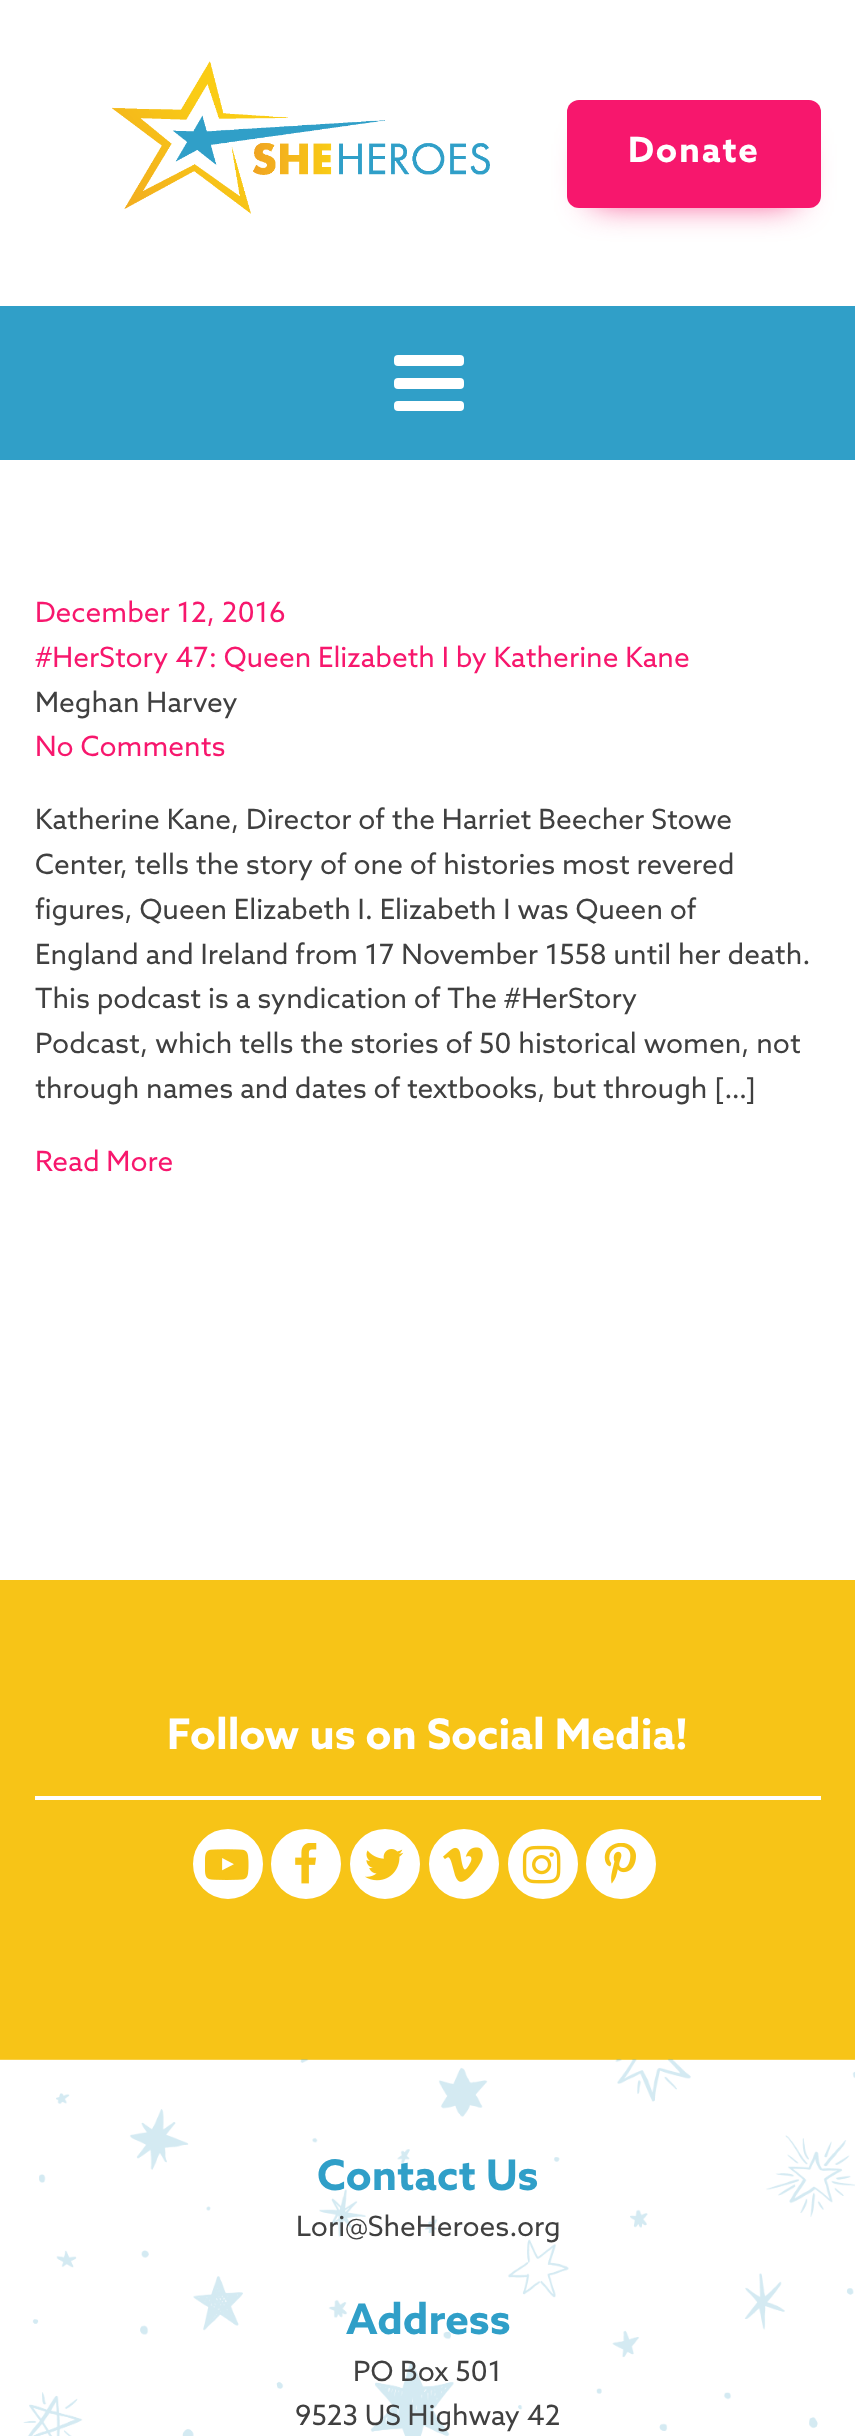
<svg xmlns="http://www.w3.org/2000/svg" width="855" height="2436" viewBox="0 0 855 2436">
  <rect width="100%" height="100%" fill="rgb(255,255,255)"/>
  <image x="112" y="61" width="378" height="153" href="pic1.png"/>
  <rect x="593" y="144" width="202" height="56" fill="rgb(247,23,109)" filter="blur(17.5px)"/>
  <rect x="567" y="100" width="254" height="108" rx="12" fill="rgb(247,23,109)"/>
  <text x="628" y="162" font-family="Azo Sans" font-size="35" font-weight="bold" letter-spacing="1.75" fill="rgb(255,255,255)">Donate</text>
  <rect x="0" y="306" width="855" height="154" fill="rgb(48,159,200)"/>
  <rect x="394" y="355" width="70" height="11" rx="4" fill="rgb(255,255,255)"/>
  <rect x="394" y="378" width="70" height="11" rx="4" fill="rgb(255,255,255)"/>
  <rect x="394" y="401" width="70" height="10" rx="4" fill="rgb(255,255,255)"/>
  <g font-family="Azo Sans" font-size="28" fill="rgb(247,23,109)">
    <text>
      <tspan x="35" y="622">December 12, 2016</tspan>
      <tspan x="35" y="667">#HerStory 47: Queen Elizabeth I by Katherine Kane</tspan>
    </text>
  </g>
  <text x="35" y="712" font-family="Azo Sans" font-size="28" fill="rgb(64,64,64)">Meghan Harvey</text>
  <text x="35" y="756" font-family="Azo Sans" font-size="28" fill="rgb(247,23,109)">No Comments</text>
  <g font-family="Azo Sans" font-size="28" fill="rgb(64,64,64)">
    <text>
      <tspan x="35" y="829">Katherine Kane, Director of the Harriet Beecher Stowe</tspan>
      <tspan x="35" y="874">Center, tells the story of one of histories most revered</tspan>
      <tspan x="35" y="919">figures, Queen Elizabeth I. Elizabeth I was Queen of</tspan>
      <tspan x="35" y="964">England and Ireland from 17 November 1558 until her death.</tspan>
      <tspan x="35" y="1008">This podcast is a syndication of The #HerStory</tspan>
      <tspan x="35" y="1053">Podcast, which tells the stories of 50 historical women, not</tspan>
      <tspan x="35" y="1098">through names and dates of textbooks, but through […]</tspan>
    </text>
  </g>
  <text x="35" y="1171" font-family="Azo Sans" font-size="28" fill="rgb(247,23,109)">Read More</text>
  <rect x="0" y="1580" width="855" height="480" fill="rgb(247,196,23)"/>
  <text x="167" y="1749" font-family="Azo Sans" font-size="42.25" font-weight="bold" fill="rgb(255,255,255)">Follow us on Social Media!</text>
  <rect x="35" y="1796" width="786" height="4" fill="rgb(255,255,255)"/>
  <circle cx="228" cy="1864" r="33" fill="rgb(255,255,255)" stroke="rgb(255,255,255)" stroke-width="4"/>
  <image x="205" y="1849" width="44" height="31" href="pic2.png"/>
  <circle cx="306" cy="1864" r="33" fill="rgb(255,255,255)" stroke="rgb(255,255,255)" stroke-width="4"/>
  <image x="295" y="1843" width="22" height="41" href="pic3.png"/>
  <circle cx="385" cy="1864" r="33" fill="rgb(255,255,255)" stroke="rgb(255,255,255)" stroke-width="4"/>
  <image x="365" y="1849" width="39" height="32" href="pic4.png"/>
  <circle cx="464" cy="1864" r="33" fill="rgb(255,255,255)" stroke="rgb(255,255,255)" stroke-width="4"/>
  <image x="443" y="1847" width="40" height="35" href="pic5.png"/>
  <circle cx="543" cy="1864" r="33" fill="rgb(255,255,255)" stroke="rgb(255,255,255)" stroke-width="4"/>
  <image x="522" y="1845" width="39" height="39" href="pic6.png"/>
  <circle cx="621" cy="1864" r="33" fill="rgb(255,255,255)" stroke="rgb(255,255,255)" stroke-width="4"/>
  <image x="604" y="1843" width="32" height="41" href="pic7.png"/>
  <image x="0" y="2059" width="855" height="377" href="pic8.png"/>
  <text x="317" y="2190" font-family="Azo Sans" font-size="42.25" font-weight="bold" fill="rgb(48,159,200)">Contact Us</text>
  <text x="296" y="2236" font-family="Azo Sans" font-size="28" fill="rgb(64,64,64)">Lori@SheHeroes.org</text>
  <text x="346" y="2334" font-family="Azo Sans" font-size="42.25" font-weight="bold" fill="rgb(48,159,200)">Address</text>
  <g font-family="Azo Sans" font-size="28" fill="rgb(64,64,64)">
    <text x="353" y="2381">PO Box 501</text>
    <text x="295" y="2425">9523 US Highway 42</text>
  </g>
</svg>
